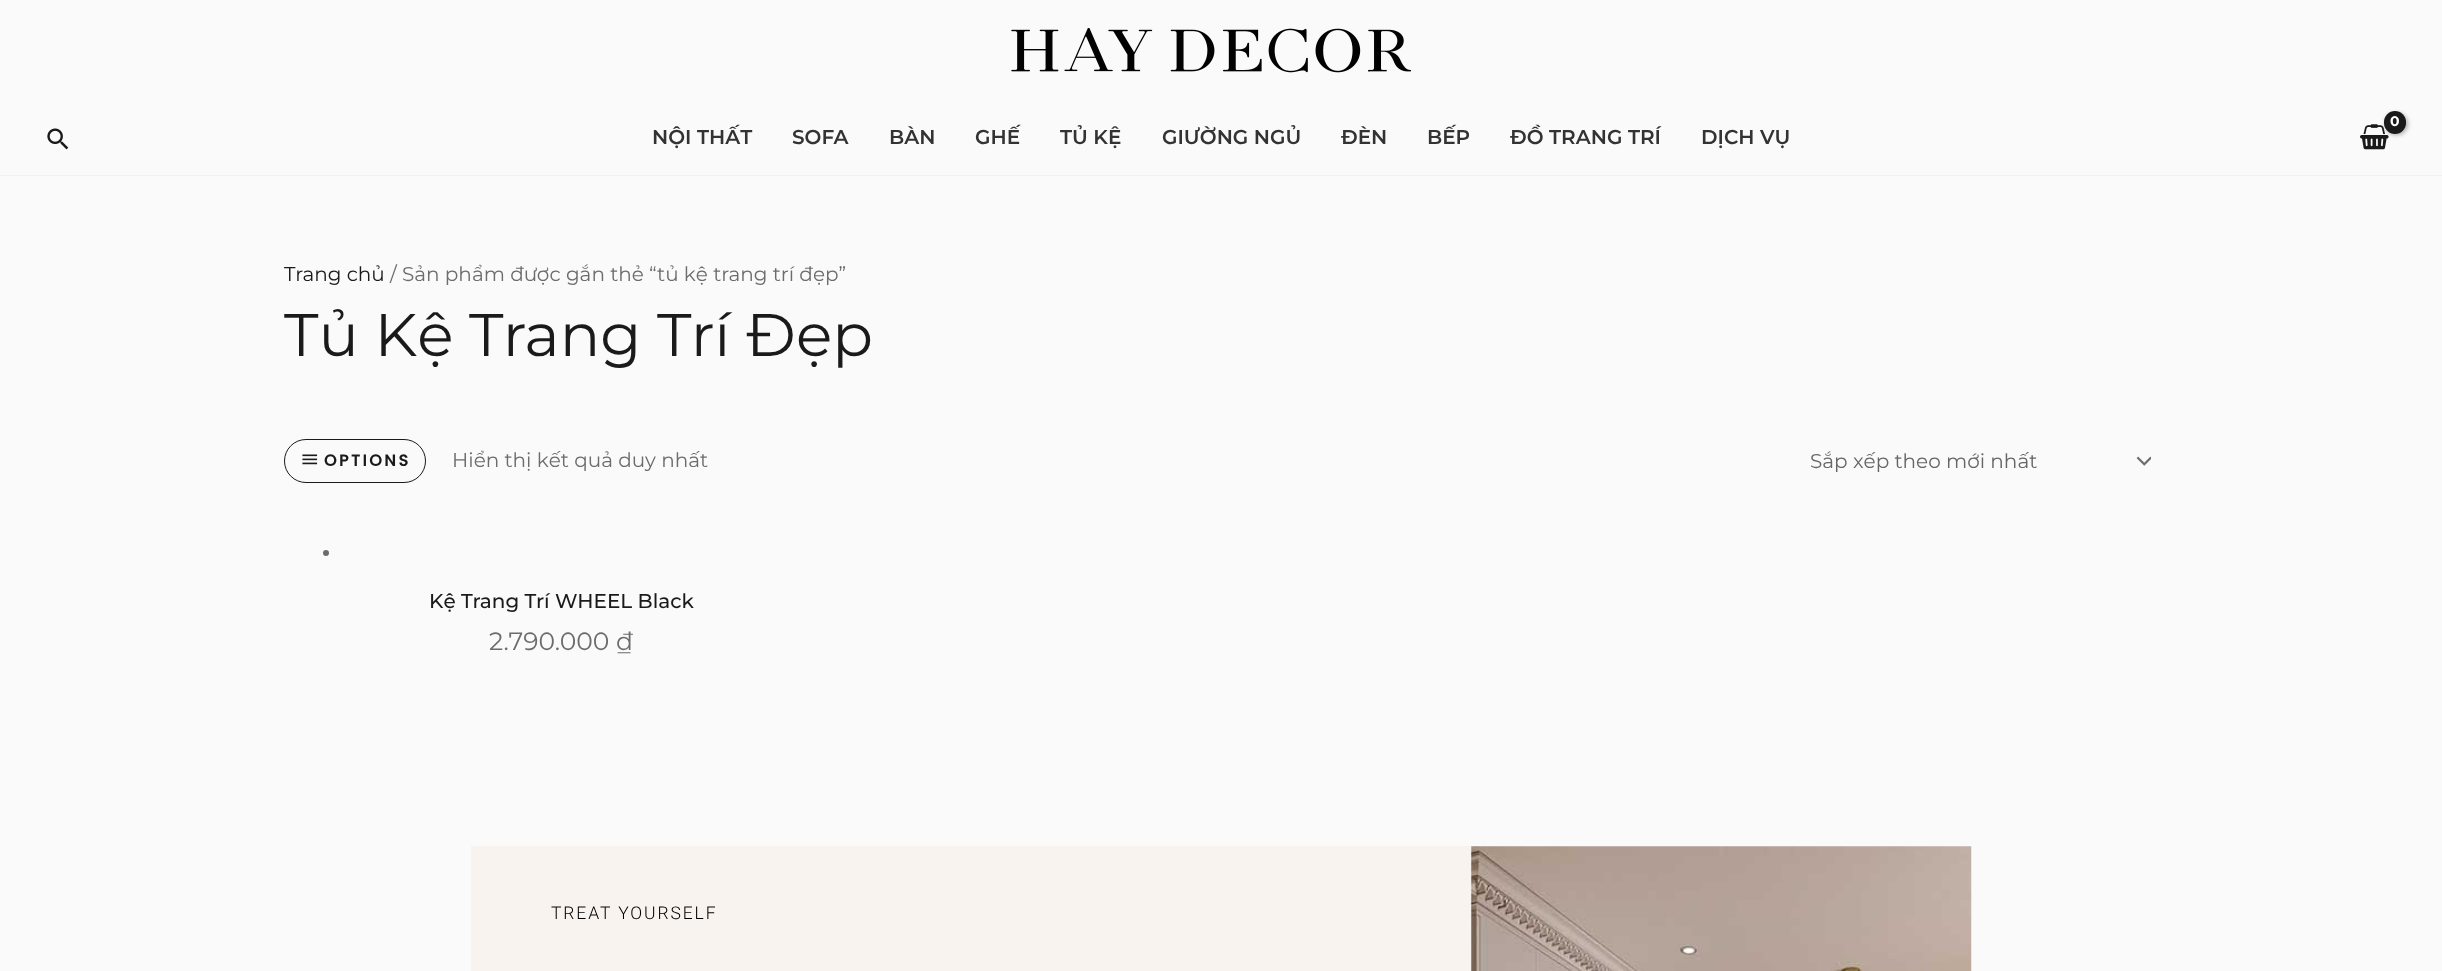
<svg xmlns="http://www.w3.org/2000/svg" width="2442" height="971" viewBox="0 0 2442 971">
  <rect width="100%" height="100%" fill="rgb(250,250,250)"/>
  <image x="1011" y="28" width="400" height="45" href="pic1.png"/>
  <rect x="0" y="175" width="2442" height="1" fill="rgb(241,241,241)"/>
  <image x="2360" y="124" width="29" height="26" href="pic2.png"/>
  <rect x="2385" y="113" width="23" height="22" rx="11" fill="rgba(0,0,0,0.3)" filter="blur(2px)"/>
  <rect x="2384" y="111" width="22" height="23" rx="11" fill="rgb(26,26,26)"/>
  <text x="2390" y="126" font-family="Montserrat" font-size="14" font-weight="bold" letter-spacing="-1" fill="rgb(255,255,255)">0</text>
  <image x="47" y="128" width="22" height="22" href="pic3.png"/>
  <g font-family="Montserrat" font-size="20" font-weight="600" fill="rgb(51,51,51)">
    <text x="652" y="144">NỘI THẤT</text>
    <text x="792" y="144">SOFA</text>
    <text x="889" y="144">BÀN</text>
    <text x="975" y="144">GHẾ</text>
    <text x="1060" y="144">TỦ KỆ</text>
    <text x="1162" y="144">GIƯỜNG NGỦ</text>
    <text x="1341" y="144">ĐÈN</text>
    <text x="1427" y="144">BẾP</text>
    <text x="1510" y="144">ĐỒ TRANG TRÍ</text>
    <text x="1701" y="144">DỊCH VỤ</text>
  </g>
  <text x="284" y="281" font-family="Montserrat" font-size="20" fill="rgb(26,26,26)">Trang chủ</text>
  <text x="390" y="281" font-family="Montserrat" font-size="20" fill="rgb(108,108,108)">/ Sản phẩm được gắn thẻ “tủ kệ trang trí đẹp”</text>
  <text x="284" y="356" font-family="Montserrat" font-size="60" fill="rgb(26,26,26)">Tủ Kệ Trang Trí Đẹp</text>
  <rect x="284.5" y="439.5" width="141" height="43" rx="21.5" fill="none" stroke="rgb(26,26,26)"/>
  <image x="302" y="454" width="16" height="11" href="pic4.png"/>
  <text x="324" y="466" font-family="Poppins" font-size="16" font-weight="bold" letter-spacing="2.5" fill="rgb(26,26,26)">OPTIONS</text>
  <text x="452" y="467" font-family="Montserrat" font-size="20" fill="rgb(108,108,108)">Hiển thị kết quả duy nhất</text>
  <image x="2136" y="456" width="15" height="10" href="pic5.png"/>
  <text x="1810" y="468" font-family="Montserrat" font-size="20" fill="rgb(102,102,102)">Sắp xếp theo mới nhất</text>
  <circle cx="326" cy="553" r="3" fill="rgb(108,108,108)"/>
  <text x="429" y="608" font-family="Montserrat" font-size="20" font-weight="500" fill="rgb(26,26,26)">Kệ Trang Trí WHEEL Black</text>
  <text x="489" y="650" font-family="Montserrat" font-size="25" fill="rgb(108,108,108)">2.790.000 ₫</text>
  <rect x="471" y="846" width="1000" height="125" fill="rgb(248,243,239)"/>
  <text x="551" y="919" font-family="Roboto" font-size="17.5" font-weight="300" letter-spacing="1.9" fill="rgb(0,0,0)">TREAT YOURSELF</text>
  <image x="1471" y="846" width="501" height="125" href="pic6.png"/>
</svg>
